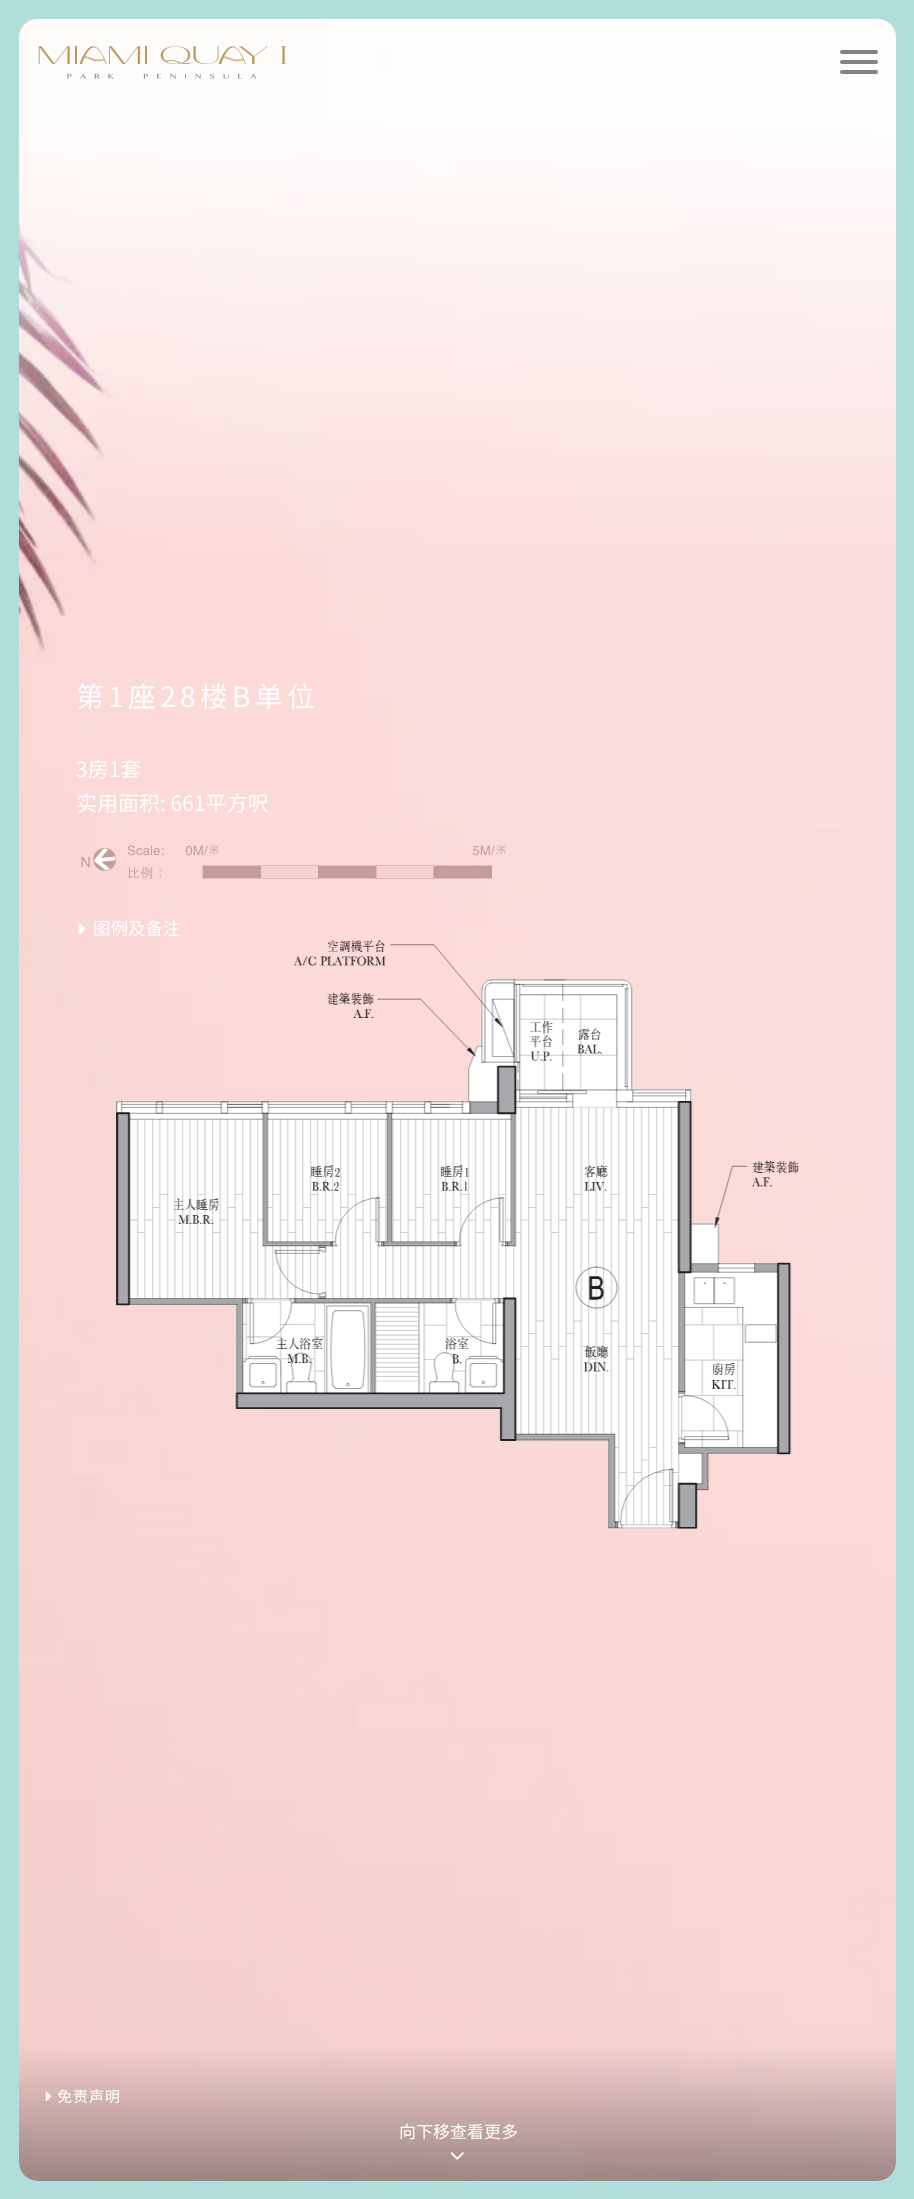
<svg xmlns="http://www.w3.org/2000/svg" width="914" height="2199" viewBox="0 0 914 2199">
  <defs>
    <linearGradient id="g1" gradientUnits="userSpaceOnUse" x1="458" y1="19" x2="458" y2="560"><stop offset="0.2" stop-color="rgb(255,255,255)" stop-opacity="0.9"/><stop offset="1" stop-color="rgb(255,255,255)" stop-opacity="0"/></linearGradient>
    <linearGradient id="g2" gradientUnits="userSpaceOnUse" x1="458" y1="2044" x2="458" y2="2181"><stop offset="0" stop-color="rgb(0,0,0)" stop-opacity="0"/><stop offset="1" stop-color="rgb(0,0,0)" stop-opacity="0.36"/></linearGradient>
  </defs>
  <rect width="100%" height="100%" fill="rgb(176,223,219)"/>
  <image x="18" y="18" width="879" height="2164" href="pic2.png"/>
  <path d="M38 19H877C887.5 19 896 27.5 896 38V560H19V38C19 27.5 27.5 19 38 19Z" fill="url(#g1)"/>
  <image x="38" y="46" width="249" height="33" href="pic1.png"/>
  <rect x="840" y="50" width="38" height="4" rx="2" fill="rgb(128,130,133)"/>
  <rect x="840" y="60" width="38" height="4" rx="2" fill="rgb(128,130,133)"/>
  <rect x="840" y="70" width="38" height="4" rx="2" fill="rgb(128,130,133)"/>
  <path d="M19 2044H896V2162C896 2172.5 887.5 2181 877 2181H38C27.5 2181 19 2172.5 19 2162Z" fill="url(#g2)"/>
  <text x="76" y="707" font-family="Noto Sans SC" font-size="28" letter-spacing="4.25" fill="rgb(255,255,255)">第1座28楼B单位</text>
  <g font-family="Noto Sans SC" font-size="21" fill="rgb(255,255,255)">
    <text>
      <tspan x="76" y="777">3房1套</tspan>
      <tspan x="76" y="811">实用面积: 661平方呎</tspan>
    </text>
  </g>
  <image x="81" y="848" width="36" height="23" href="pic3.png"/>
  <image x="127" y="845" width="379" height="34" href="pic4.png"/>
  <image x="78" y="923" width="7" height="11" href="pic5.png"/>
  <text x="93" y="935" font-family="Noto Sans SC" font-size="17.5" fill="rgb(255,255,255)">图例及备注</text>
  <image x="116" y="940" width="683" height="589" href="pic6.png"/>
  <image x="45" y="2091" width="7" height="10" href="pic7.png"/>
  <text x="57" y="2102" font-family="Noto Sans SC" font-size="15" letter-spacing="1" fill="rgb(255,255,255)">免责声明</text>
  <text x="399" y="2138" font-family="Noto Sans SC" font-size="17" fill="rgb(255,255,255)">向下移查看更多</text>
  <image x="450" y="2152" width="14" height="8" href="pic8.png"/>
</svg>
